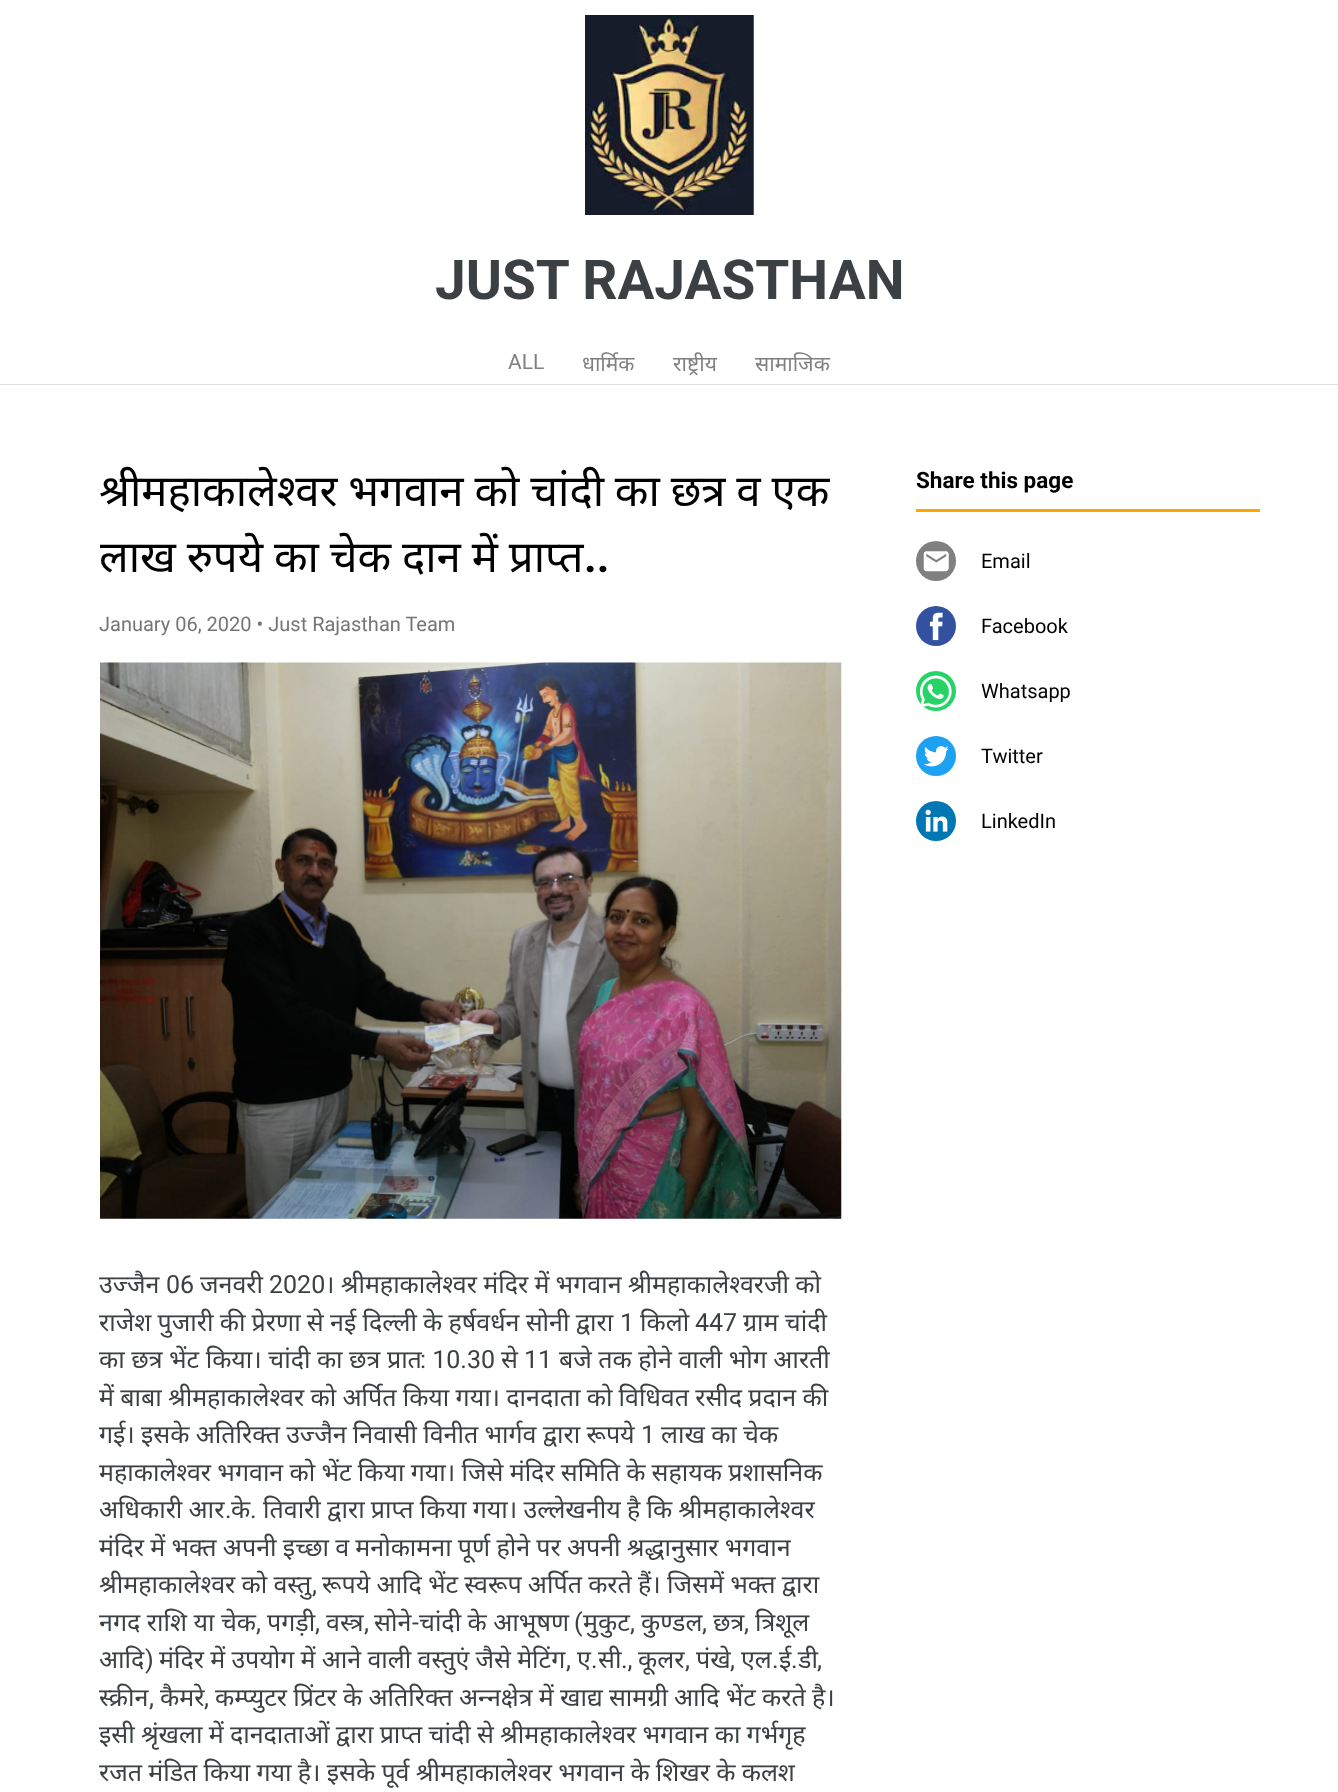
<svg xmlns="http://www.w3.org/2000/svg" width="1338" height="1792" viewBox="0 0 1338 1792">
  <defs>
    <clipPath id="clip1"><rect x="100" y="460" width="741" height="131"/></clipPath>
  </defs>
  <rect width="100%" height="100%" fill="rgb(255,255,255)"/>
  <rect x="0" y="384" width="1338" height="1" fill="rgb(224,224,224)"/>
  <image x="585" y="15" width="169" height="200" href="pic1.png"/>
  <text x="435" y="299" font-family="Roboto" font-size="55" font-weight="bold" fill="rgb(60,64,67)">JUST RAJASTHAN</text>
  <text x="508" y="369" font-family="Roboto" font-size="21" fill="rgb(128,128,128)">ALL</text>
  <g font-family="Noto Sans" font-size="21" fill="rgb(128,128,128)">
    <text x="582" y="371">धार्मिक</text>
    <text x="673" y="371">राष्ट्रीय</text>
    <text x="755" y="371">सामाजिक</text>
  </g>
  <g clip-path="url(#clip1)">
    <g font-family="Noto Sans" font-size="43.75" fill="rgb(0,0,0)">
      <text>
        <tspan x="99" y="506" word-spacing="-0.5">श्रीमहाकालेश्‍वर भगवान को चांदी का छत्र व एक</tspan>
        <tspan x="99" y="572" word-spacing="-0.5">लाख रुपये का चेक दान में प्राप्‍त</tspan>
      </text>
    </g>
  </g>
  <text x="584" y="572" font-family="Roboto" font-size="43.75" font-weight="bold" fill="rgb(0,0,0)">..</text>
  <text x="99" y="631" font-family="Roboto" font-size="20" fill="rgb(117,117,117)">January 06, 2020 • Just Rajasthan Team</text>
  <image x="100" y="662" width="742" height="557" href="pic2.png"/>
  <text x="99" y="1293" font-family="Noto Sans" font-size="25" fill="rgb(60,64,67)">उज्जैन</text>
  <text x="166" y="1293" font-family="Roboto" font-size="25" fill="rgb(60,64,67)">06</text>
  <text x="200" y="1293" font-family="Noto Sans" font-size="25" fill="rgb(60,64,67)">जनवरी</text>
  <text x="269" y="1293" font-family="Roboto" font-size="25" fill="rgb(60,64,67)">2020</text>
  <g font-family="Noto Sans" font-size="25" fill="rgb(60,64,67)">
    <text x="325" y="1293" word-spacing="-0.25">। श्रीमहाकालेश्‍वर मंदिर में भगवान श्रीमहाकालेश्‍वरजी को</text>
    <text x="99" y="1331" word-spacing="-0.25">राजेश पुजारी की प्रेरणा से नई दिल्‍ली के हर्षवर्धन सोनी द्वारा</text>
  </g>
  <text x="620" y="1331" font-family="Roboto" font-size="25" fill="rgb(60,64,67)">1</text>
  <text x="640" y="1331" font-family="Noto Sans" font-size="25" fill="rgb(60,64,67)">किलो</text>
  <text x="695" y="1331" font-family="Roboto" font-size="25" fill="rgb(60,64,67)">447</text>
  <g font-family="Noto Sans" font-size="25" fill="rgb(60,64,67)">
    <text x="743" y="1331" word-spacing="-0.25">ग्राम चांदी</text>
    <text x="99" y="1368">का छत्र भेंट किया। चांदी का छत्र प्रात</text>
  </g>
  <text x="420" y="1368" font-family="Roboto" font-size="25" fill="rgb(60,64,67)">: 10.30</text>
  <text x="501" y="1368" font-family="Noto Sans" font-size="25" fill="rgb(60,64,67)">से</text>
  <text x="524" y="1368" font-family="Roboto" font-size="25" fill="rgb(60,64,67)">11</text>
  <g font-family="Noto Sans" font-size="25" fill="rgb(60,64,67)">
    <text x="559" y="1368">बजे तक होने वाली भोग आरती</text>
    <text>
      <tspan x="99" y="1406" word-spacing="-0.25">में बाबा श्रीमहाकालेश्‍वर को अर्पित किया गया। दानदाता को विधिवत रसीद प्रदान की</tspan>
      <tspan x="99" y="1443" word-spacing="-0.25">गई। इसके अतिरिक्‍त उज्‍जैन निवासी विनीत भार्गव द्वारा रूपये</tspan>
    </text>
  </g>
  <text x="641" y="1443" font-family="Roboto" font-size="25" fill="rgb(60,64,67)">1</text>
  <g font-family="Noto Sans" font-size="25" fill="rgb(60,64,67)">
    <text x="661" y="1443" word-spacing="-0.25">लाख का चेक</text>
    <text>
      <tspan x="99" y="1481" word-spacing="-0.25">महाकालेश्‍वर भगवान को भेंट किया गया। जिसे मंदिर समिति के सहायक प्रशासनिक</tspan>
      <tspan x="99" y="1518" word-spacing="-0.25">अधिकारी आर</tspan>
    </text>
  </g>
  <text x="225" y="1518" font-family="Roboto" font-size="25" fill="rgb(60,64,67)">.</text>
  <g font-family="Noto Sans" font-size="25" fill="rgb(60,64,67)">
    <text x="231" y="1518">के</text>
    <text x="263" y="1518" word-spacing="-0.25">तिवारी द्वारा प्राप्‍त किया गया। उल्लेखनीय है कि श्रीमहाकालेश्‍वर</text>
  </g>
  <text x="250" y="1518" font-family="Roboto" font-size="25" fill="rgb(60,64,67)">.</text>
  <g font-family="Noto Sans" font-size="25" fill="rgb(60,64,67)">
    <text>
      <tspan x="99" y="1556" word-spacing="-0.25">मंदिर में भक्‍त अपनी इच्‍छा व मनोकामना पूर्ण होने पर अपनी श्रद्धानुसार भगवान</tspan>
      <tspan x="99" y="1593" word-spacing="-0.25">श्रीमहाकालेश्‍वर को वस्‍तु</tspan>
    </text>
  </g>
  <text x="312" y="1593" font-family="Roboto" font-size="25" fill="rgb(60,64,67)">,</text>
  <g font-family="Noto Sans" font-size="25" fill="rgb(60,64,67)">
    <text x="322" y="1593" word-spacing="-0.25">रूपये आदि भेंट स्‍वरूप अर्पित करते हैं। जिसमें भक्‍त द्वारा</text>
    <text x="99" y="1631">नगद राशि या चेक</text>
    <text x="267" y="1631">पगड़ी</text>
    <text x="326" y="1631">वस्‍त्र</text>
    <text x="374" y="1631">सोने</text>
  </g>
  <text x="412" y="1631" font-family="Roboto" font-size="25" fill="rgb(60,64,67)">-</text>
  <text x="419" y="1631" font-family="Noto Sans" font-size="25" fill="rgb(60,64,67)">चांदी के आभूषण</text>
  <text x="574" y="1631" font-family="Roboto" font-size="25" fill="rgb(60,64,67)">(</text>
  <g font-family="Noto Sans" font-size="25" fill="rgb(60,64,67)">
    <text x="755" y="1631">त्रिशूल</text>
    <text x="583" y="1631">मुकुट</text>
  </g>
  <text x="630" y="1631" font-family="Roboto" font-size="25" fill="rgb(60,64,67)">,</text>
  <g font-family="Noto Sans" font-size="25" fill="rgb(60,64,67)">
    <text x="641" y="1631">कुण्‍डल</text>
    <text x="713" y="1631">छत्र</text>
  </g>
  <g font-family="Roboto" font-size="25" fill="rgb(60,64,67)">
    <text x="256" y="1631">,</text>
    <text x="315" y="1631">,</text>
    <text x="364" y="1631">,</text>
    <text x="702" y="1631">,</text>
    <text x="744" y="1631">,</text>
  </g>
  <text x="99" y="1668" font-family="Noto Sans" font-size="25" fill="rgb(60,64,67)">आदि</text>
  <text x="145" y="1668" font-family="Roboto" font-size="25" fill="rgb(60,64,67)">)</text>
  <text x="159" y="1668" word-spacing="-0.25" font-family="Noto Sans" font-size="25" fill="rgb(60,64,67)">मंदिर में उपयोग में आने वाली वस्‍तुएं जैसे मेटिंग</text>
  <text x="566" y="1668" font-family="Roboto" font-size="25" fill="rgb(60,64,67)">,</text>
  <text x="577" y="1668" font-family="Noto Sans" font-size="25" fill="rgb(60,64,67)">ए</text>
  <text x="591" y="1668" font-family="Roboto" font-size="25" fill="rgb(60,64,67)">.</text>
  <text x="598" y="1668" font-family="Noto Sans" font-size="25" fill="rgb(60,64,67)">सी</text>
  <text x="621" y="1668" font-family="Roboto" font-size="25" fill="rgb(60,64,67)">.,</text>
  <g font-family="Noto Sans" font-size="25" fill="rgb(60,64,67)">
    <text x="638" y="1668">कूलर</text>
    <text x="696" y="1668">पंखे</text>
    <text x="741" y="1668">एल</text>
  </g>
  <text x="772" y="1668" font-family="Roboto" font-size="25" fill="rgb(60,64,67)">.</text>
  <text x="779" y="1668" font-family="Noto Sans" font-size="25" fill="rgb(60,64,67)">ई</text>
  <text x="791" y="1668" font-family="Roboto" font-size="25" fill="rgb(60,64,67)">.</text>
  <text x="798" y="1668" font-family="Noto Sans" font-size="25" fill="rgb(60,64,67)">डी</text>
  <g font-family="Roboto" font-size="25" fill="rgb(60,64,67)">
    <text x="685" y="1668">,</text>
    <text x="730" y="1668">,</text>
    <text x="817" y="1668">,</text>
  </g>
  <text x="99" y="1706" font-family="Noto Sans" font-size="25" fill="rgb(60,64,67)">स्‍क्रीन</text>
  <text x="149" y="1706" font-family="Roboto" font-size="25" fill="rgb(60,64,67)">,</text>
  <g font-family="Noto Sans" font-size="25" fill="rgb(60,64,67)">
    <text x="160" y="1706">कैमरे</text>
    <text x="215" y="1706" word-spacing="-0.25">कम्‍प्‍युटर प्रिंटर के अतिरिक्‍त अन्‍नक्षेत्र में खाद्य सामग्री आदि भेंट करते है।</text>
  </g>
  <text x="204" y="1706" font-family="Roboto" font-size="25" fill="rgb(60,64,67)">,</text>
  <g font-family="Noto Sans" font-size="25" fill="rgb(60,64,67)">
    <text>
      <tspan x="99" y="1743" word-spacing="-0.25">इसी श्रृंखला में दानदाताओं द्वारा प्राप्‍त चांदी से श्रीमहाकालेश्‍वर भगवान का गर्भगृह</tspan>
      <tspan x="99" y="1781" word-spacing="-0.25">रजत मंडित किया गया है। इसके पूर्व श्रीमहाकालेश्‍वर भगवान के शिखर के कलश</tspan>
    </text>
  </g>
  <rect x="916" y="509" width="344" height="3" fill="rgb(255,165,0)"/>
  <text x="916" y="488" font-family="Roboto" font-size="22.5" font-weight="bold" fill="rgb(0,0,0)">Share this page</text>
  <circle cx="936" cy="561" r="20" fill="rgb(128,128,128)"/>
  <image x="923" y="551" width="26" height="21" href="pic3.png"/>
  <text x="981" y="568" font-family="Roboto" font-size="20" fill="rgb(0,0,0)">Email</text>
  <circle cx="936" cy="626" r="20" fill="rgb(50,82,159)"/>
  <image x="929" y="612" width="14" height="29" href="pic4.png"/>
  <text x="981" y="633" font-family="Roboto" font-size="20" fill="rgb(0,0,0)">Facebook</text>
  <circle cx="936" cy="691" r="20" fill="rgb(37,211,102)"/>
  <image x="919" y="675" width="33" height="33" href="pic5.png"/>
  <text x="981" y="698" font-family="Roboto" font-size="20" fill="rgb(0,0,0)">Whatsapp</text>
  <circle cx="936" cy="756" r="20" fill="rgb(29,161,242)"/>
  <image x="924" y="746" width="25" height="21" href="pic6.png"/>
  <text x="981" y="763" font-family="Roboto" font-size="20" fill="rgb(0,0,0)">Twitter</text>
  <circle cx="936" cy="821" r="20" fill="rgb(0,119,181)"/>
  <image x="925" y="809" width="23" height="23" href="pic7.png"/>
  <text x="981" y="828" font-family="Roboto" font-size="20" fill="rgb(0,0,0)">LinkedIn</text>
</svg>
